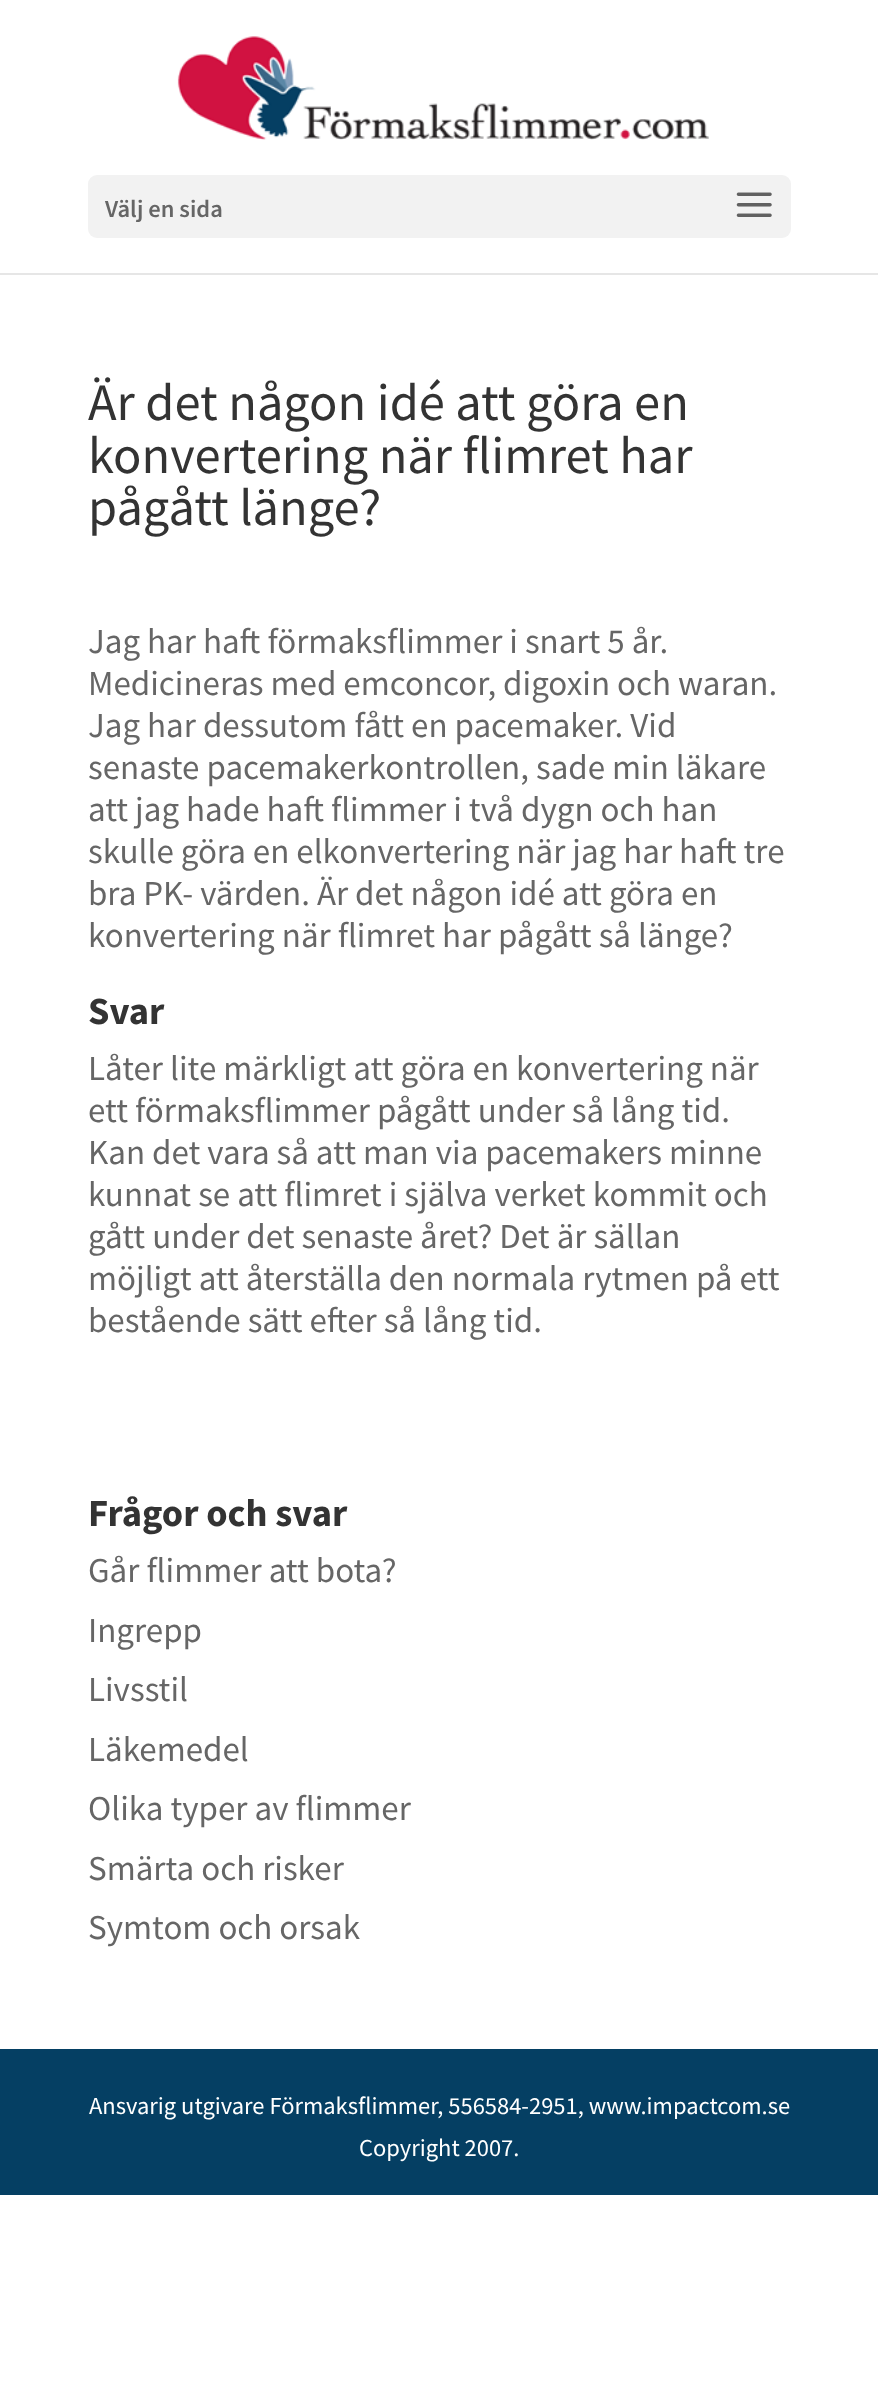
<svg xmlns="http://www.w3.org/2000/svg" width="878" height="2388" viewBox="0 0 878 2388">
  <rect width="100%" height="100%" fill="rgb(255,255,255)"/>
  <path d="M0 273V275H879V2H878V273Z" fill="rgb(230,230,230)"/>
  <image x="177" y="36" width="532" height="104" href="pic1.png"/>
  <rect x="88" y="175" width="703" height="63" rx="9" fill="rgb(242,242,242)"/>
  <text x="105" y="217" font-family="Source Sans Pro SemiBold" font-size="24.5" font-weight="600" fill="rgb(102,102,102)">Välj en sida</text>
  <image x="736" y="192" width="36" height="25" href="pic2.png"/>
  <g font-family="Source Sans Pro" font-size="52.5" fill="rgb(51,51,51)">
    <text>
      <tspan x="88" y="420">Är det någon idé att göra en</tspan>
      <tspan x="88" y="473">konvertering när flimret har</tspan>
      <tspan x="88" y="525">pågått länge?</tspan>
    </text>
  </g>
  <g font-family="Source Sans Pro" font-size="35" fill="rgb(102,102,102)">
    <text>
      <tspan x="88" y="653">Jag har haft förmaksflimmer i snart 5 år.</tspan>
      <tspan x="88" y="695">Medicineras med emconcor, digoxin och waran.</tspan>
      <tspan x="88" y="737">Jag har dessutom fått en pacemaker. Vid</tspan>
      <tspan x="88" y="779">senaste pacemakerkontrollen, sade min läkare</tspan>
      <tspan x="88" y="821">att jag hade haft flimmer i två dygn och han</tspan>
      <tspan x="88" y="863">skulle göra en elkonvertering när jag har haft tre</tspan>
      <tspan x="88" y="905">bra PK- värden. Är det någon idé att göra en</tspan>
      <tspan x="88" y="947">konvertering när flimret har pågått så länge?</tspan>
    </text>
  </g>
  <text x="88" y="1024" font-family="Source Sans Pro" font-size="38.5" font-weight="bold" fill="rgb(51,51,51)">Svar</text>
  <g font-family="Source Sans Pro" font-size="35" fill="rgb(102,102,102)">
    <text>
      <tspan x="88" y="1080">Låter lite märkligt att göra en konvertering när</tspan>
      <tspan x="88" y="1122">ett förmaksflimmer pågått under så lång tid.</tspan>
      <tspan x="88" y="1164">Kan det vara så att man via pacemakers minne</tspan>
      <tspan x="88" y="1206">kunnat se att flimret i själva verket kommit och</tspan>
      <tspan x="88" y="1248">gått under det senaste året? Det är sällan</tspan>
      <tspan x="88" y="1290">möjligt att återställa den normala rytmen på ett</tspan>
      <tspan x="88" y="1332">bestående sätt efter så lång tid.</tspan>
    </text>
  </g>
  <text x="88" y="1526" font-family="Source Sans Pro" font-size="38.5" font-weight="bold" fill="rgb(51,51,51)">Frågor och svar</text>
  <g font-family="Source Sans Pro" font-size="35" fill="rgb(102,102,102)">
    <text>
      <tspan x="88" y="1582">Går flimmer att bota?</tspan>
      <tspan x="88" y="1642">Ingrepp</tspan>
      <tspan x="88" y="1701">Livsstil</tspan>
      <tspan x="88" y="1761">Läkemedel</tspan>
      <tspan x="88" y="1820">Olika typer av flimmer</tspan>
      <tspan x="88" y="1880">Smärta och risker</tspan>
      <tspan x="88" y="1939">Symtom och orsak</tspan>
    </text>
  </g>
  <rect x="0" y="2049" width="878" height="146" fill="rgb(5,63,99)"/>
  <g font-family="Source Sans Pro" font-size="24.5" fill="rgb(255,255,255)">
    <text x="89" y="2114">Ansvarig utgivare Förmaksflimmer, 556584-2951, www.impactcom.se</text>
    <text x="359" y="2156">Copyright 2007.</text>
  </g>
</svg>
